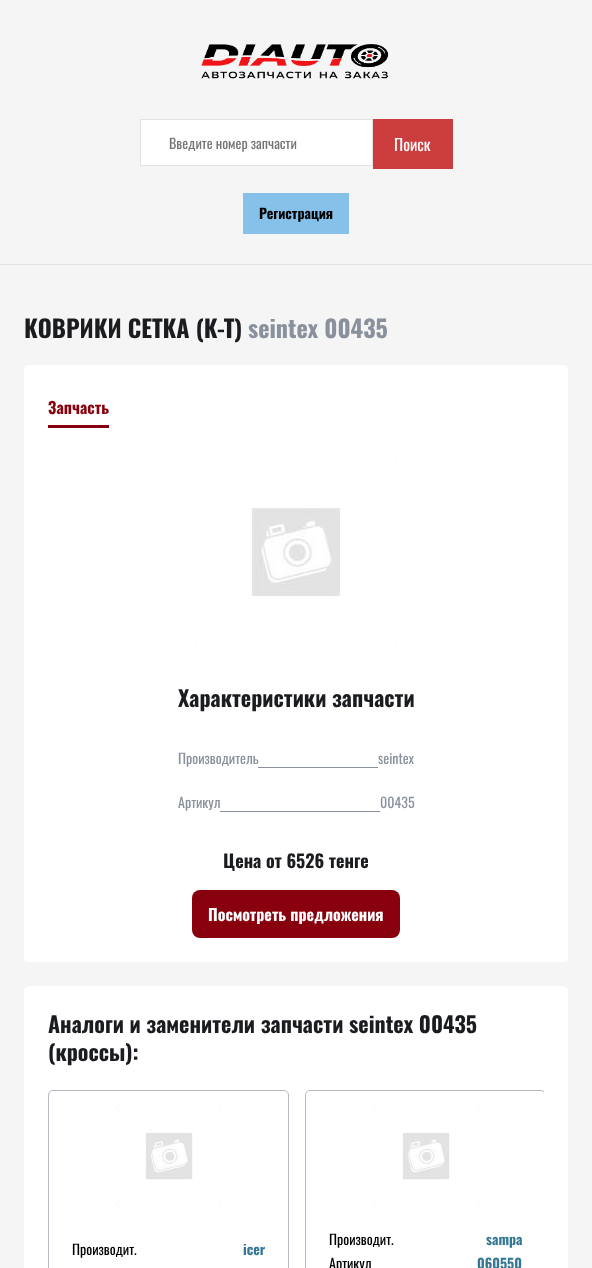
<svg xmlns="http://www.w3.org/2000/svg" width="592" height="1268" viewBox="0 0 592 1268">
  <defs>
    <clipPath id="clip1"><rect x="48" y="1090" width="496" height="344"/></clipPath>
  </defs>
  <rect width="100%" height="100%" fill="rgb(245,245,245)"/>
  <rect x="0" y="264" width="592" height="1" fill="rgb(227,227,227)"/>
  <image x="201" y="44" width="188" height="35" href="pic1.png"/>
  <rect x="140.5" y="119.5" width="232" height="46" fill="rgb(255,255,255)" stroke="rgb(227,227,227)"/>
  <text x="169" y="149" font-family="Oswald" font-size="14" fill="rgb(117,117,117)">Введите номер запчасти</text>
  <rect x="373" y="119" width="80" height="50" fill="rgb(204,61,61)"/>
  <text x="394" y="151" font-family="Oswald" font-size="16" fill="rgb(255,255,255)">Поиск</text>
  <rect x="243" y="193" width="106" height="41" fill="rgb(133,193,233)"/>
  <text x="259" y="219" font-family="Oswald" font-size="14" font-weight="bold" fill="rgb(0,0,0)">Регистрация</text>
  <text x="24" y="338" font-family="Oswald" font-size="24" font-weight="bold" fill="rgb(26,28,31)">КОВРИКИ СЕТКА (К-Т)</text>
  <text x="248" y="338" font-family="Oswald" font-size="24" font-weight="bold" fill="rgb(137,145,156)">seintex 00435</text>
  <rect x="24" y="365" width="544" height="597" rx="5" fill="rgb(255,255,255)"/>
  <rect x="48" y="425" width="61" height="3" fill="rgb(136,0,13)"/>
  <text x="48" y="414" font-family="Oswald" font-size="16" font-weight="bold" fill="rgb(136,0,13)">Запчасть</text>
  <rect x="196" y="452" width="200" height="200" rx="8" fill="rgb(224,228,231)"/>
  <image x="196" y="452" width="200" height="200" href="pic2.png"/>
  <text x="178" y="707" font-family="Oswald" font-size="22" font-weight="bold" fill="rgb(26,28,31)">Характеристики запчасти</text>
  <g font-family="Oswald" font-size="14" fill="rgb(137,145,156)">
    <text x="178" y="764">Производитель</text>
    <text x="378" y="764">seintex</text>
  </g>
  <rect x="258" y="767" width="120" height="1" fill="rgb(137,145,156)"/>
  <g font-family="Oswald" font-size="14" fill="rgb(137,145,156)">
    <text x="178" y="808">Артикул</text>
    <text x="380" y="808">00435</text>
  </g>
  <rect x="220" y="811" width="160" height="1" fill="rgb(137,145,156)"/>
  <text x="223" y="868" font-family="Oswald" font-size="18" font-weight="bold" fill="rgb(26,28,31)">Цена от 6526 тенге</text>
  <rect x="192" y="890" width="208" height="48" rx="8" fill="rgb(136,0,13)"/>
  <text x="208" y="921" font-family="Oswald" font-size="16" font-weight="bold" fill="rgb(255,255,255)">Посмотреть предложения</text>
  <rect x="24" y="986" width="544" height="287" rx="5" fill="rgb(255,255,255)"/>
  <g font-family="Oswald" font-size="22" font-weight="bold" fill="rgb(26,28,31)">
    <text>
      <tspan x="48" y="1033">Аналоги и заменители запчасти seintex 00435</tspan>
      <tspan x="48" y="1061">(кроссы):</tspan>
    </text>
  </g>
  <rect x="48.5" y="1090.5" width="240" height="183" rx="4.5" fill="none" stroke="rgb(180,185,192)"/>
  <rect x="116" y="1103" width="106" height="106" rx="8" fill="rgb(224,228,231)"/>
  <image x="116" y="1103" width="106" height="106" href="pic3.png"/>
  <text x="72" y="1255" font-family="Oswald" font-size="14" fill="rgb(0,0,0)">Производит.</text>
  <text x="243" y="1255" font-family="Oswald" font-size="14" font-weight="bold" fill="rgb(53,120,148)">icer</text>
  <g clip-path="url(#clip1)">
    <rect x="305.5" y="1090.5" width="240" height="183" rx="4.5" fill="none" stroke="rgb(180,185,192)"/>
  </g>
  <rect x="373" y="1103" width="106" height="106" rx="8" fill="rgb(224,228,231)"/>
  <image x="373" y="1103" width="106" height="106" href="pic3.png"/>
  <text x="329" y="1245" font-family="Oswald" font-size="14" fill="rgb(0,0,0)">Производит.</text>
  <text x="486" y="1245" font-family="Oswald" font-size="14" font-weight="bold" fill="rgb(53,120,148)">sampa</text>
  <text x="329" y="1269" font-family="Oswald" font-size="14" fill="rgb(0,0,0)">Артикул</text>
  <text x="477" y="1269" font-family="Oswald" font-size="14" font-weight="bold" fill="rgb(53,120,148)">060550</text>
</svg>
